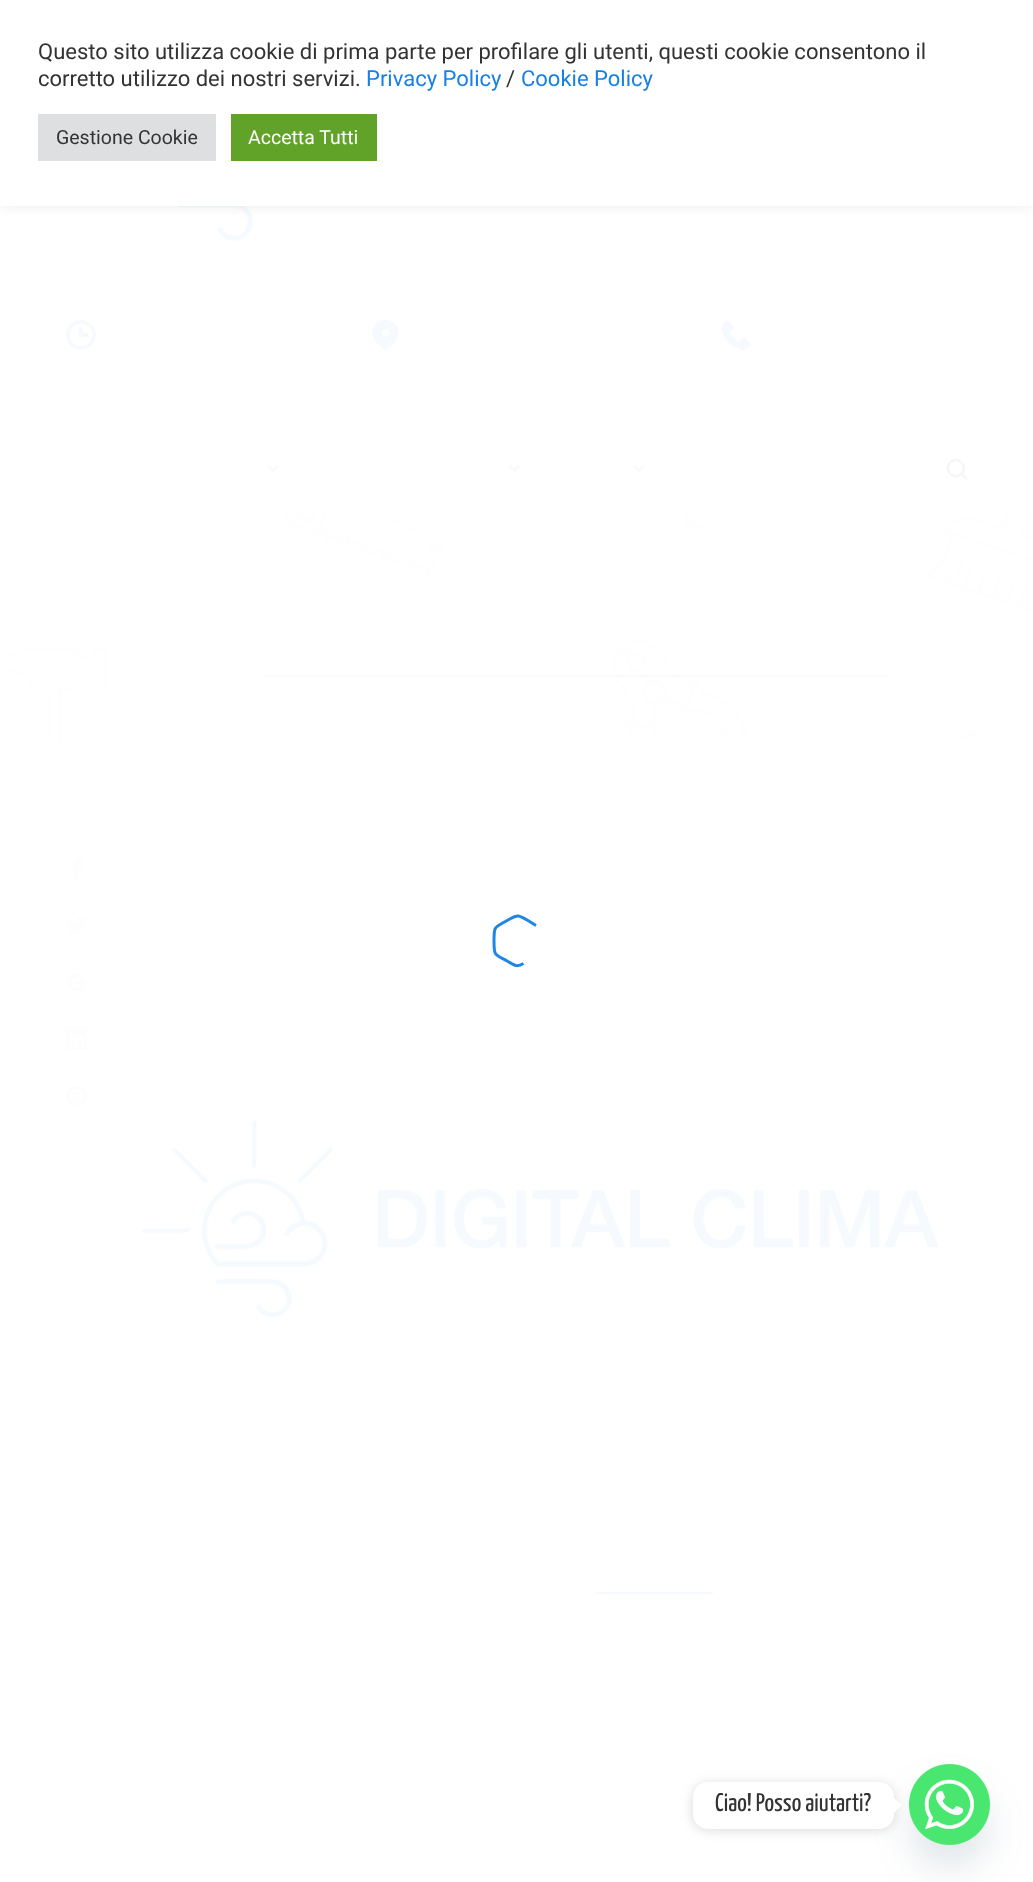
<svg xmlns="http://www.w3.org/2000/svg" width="1033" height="1882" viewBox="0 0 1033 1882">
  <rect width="100%" height="100%" fill="rgb(255,255,255)"/>
  <image x="103" y="206" width="832" height="35" href="pic1.png"/>
  <rect x="0" y="-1" width="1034" height="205" fill="rgba(172,171,171,0.3)" filter="blur(7.5px)"/>
  <rect x="0" y="0" width="1033" height="206" fill="rgb(255,255,255)"/>
  <g font-family="Roboto" font-size="22" fill="rgb(51,51,51)">
    <text>
      <tspan x="38" y="59">Questo sito utilizza cookie di prima parte per profilare gli utenti, questi cookie consentono il</tspan>
      <tspan x="38" y="86">corretto utilizzo dei nostri servizi.</tspan>
    </text>
  </g>
  <text x="366" y="86" font-family="Roboto" font-size="22" fill="rgb(22,129,229)">Privacy Policy</text>
  <text x="506" y="86" font-family="Roboto" font-size="22" fill="rgb(51,51,51)">/</text>
  <text x="521" y="86" font-family="Roboto" font-size="22" fill="rgb(22,129,229)">Cookie Policy</text>
  <rect x="38" y="114" width="178" height="47" fill="rgb(222,223,224)"/>
  <text x="56" y="144" font-family="Roboto" font-size="19.5" fill="rgb(51,51,51)">Gestione Cookie</text>
  <rect x="231" y="114" width="146" height="47" fill="rgb(97,162,41)"/>
  <text x="248" y="144" font-family="Roboto" font-size="19.5" fill="rgb(255,255,255)">Accetta Tutti</text>
  <image x="66" y="319" width="30" height="31" href="pic2.png"/>
  <image x="372" y="319" width="27" height="31" href="pic3.png"/>
  <image x="721" y="320" width="30" height="30" href="pic4.png"/>
  <image x="267" y="464" width="12" height="9" href="pic5.png"/>
  <image x="508" y="464" width="13" height="9" href="pic6.png"/>
  <image x="633" y="464" width="12" height="9" href="pic5.png"/>
  <image x="946" y="458" width="22" height="22" href="pic7.png"/>
  <image x="0" y="513" width="1033" height="228" href="pic8.png"/>
  <rect x="263" y="675" width="624" height="2" fill="rgb(250,250,250)"/>
  <image x="69" y="859" width="14" height="22" href="pic9.png"/>
  <image x="66" y="916" width="21" height="18" href="pic10.png"/>
  <image x="67" y="973" width="19" height="19" href="pic11.png"/>
  <image x="66" y="1029" width="21" height="21" href="pic12.png"/>
  <image x="66" y="1086" width="21" height="21" href="pic13.png"/>
  <image x="133" y="1113" width="808" height="212" href="pic14.png"/>
  <rect x="596" y="1592" width="117" height="2" fill="rgb(246,250,254)"/>
  <path d="M536 925.5C532.5 923.5 522.5 916.5 518.5 916C514.5 915.5 511 918.5 508 920C494.5 928 494 925 494 941C494 956.5 494.5 954 508 961.5C515 965.5 517 967.5 523.5 963.5" fill="none" stroke="rgba(22,129,229,0.96)" stroke-width="3" stroke-linejoin="round"/>
  <rect x="909" y="1788" width="81" height="81" rx="40.5" fill="rgba(73,104,126,0.16)" filter="blur(18px)"/>
  <image x="909" y="1764" width="81" height="81" href="pic15.png"/>
  <rect x="693" y="1784" width="201" height="46" rx="15" fill="rgba(0,0,0,0.15)" filter="blur(6px)"/>
  <rect x="693" y="1782" width="201" height="47" rx="15" fill="rgb(255,255,255)"/>
  <text x="715" y="1811" font-family="Yanone Kaffeesatz" font-size="25.5" font-weight="200" fill="rgb(51,51,51)">Ciao! Posso aiutarti?</text>
  <path d="M894 1813V1798L901.5 1805Z" fill="rgb(255,255,255)"/>
</svg>
